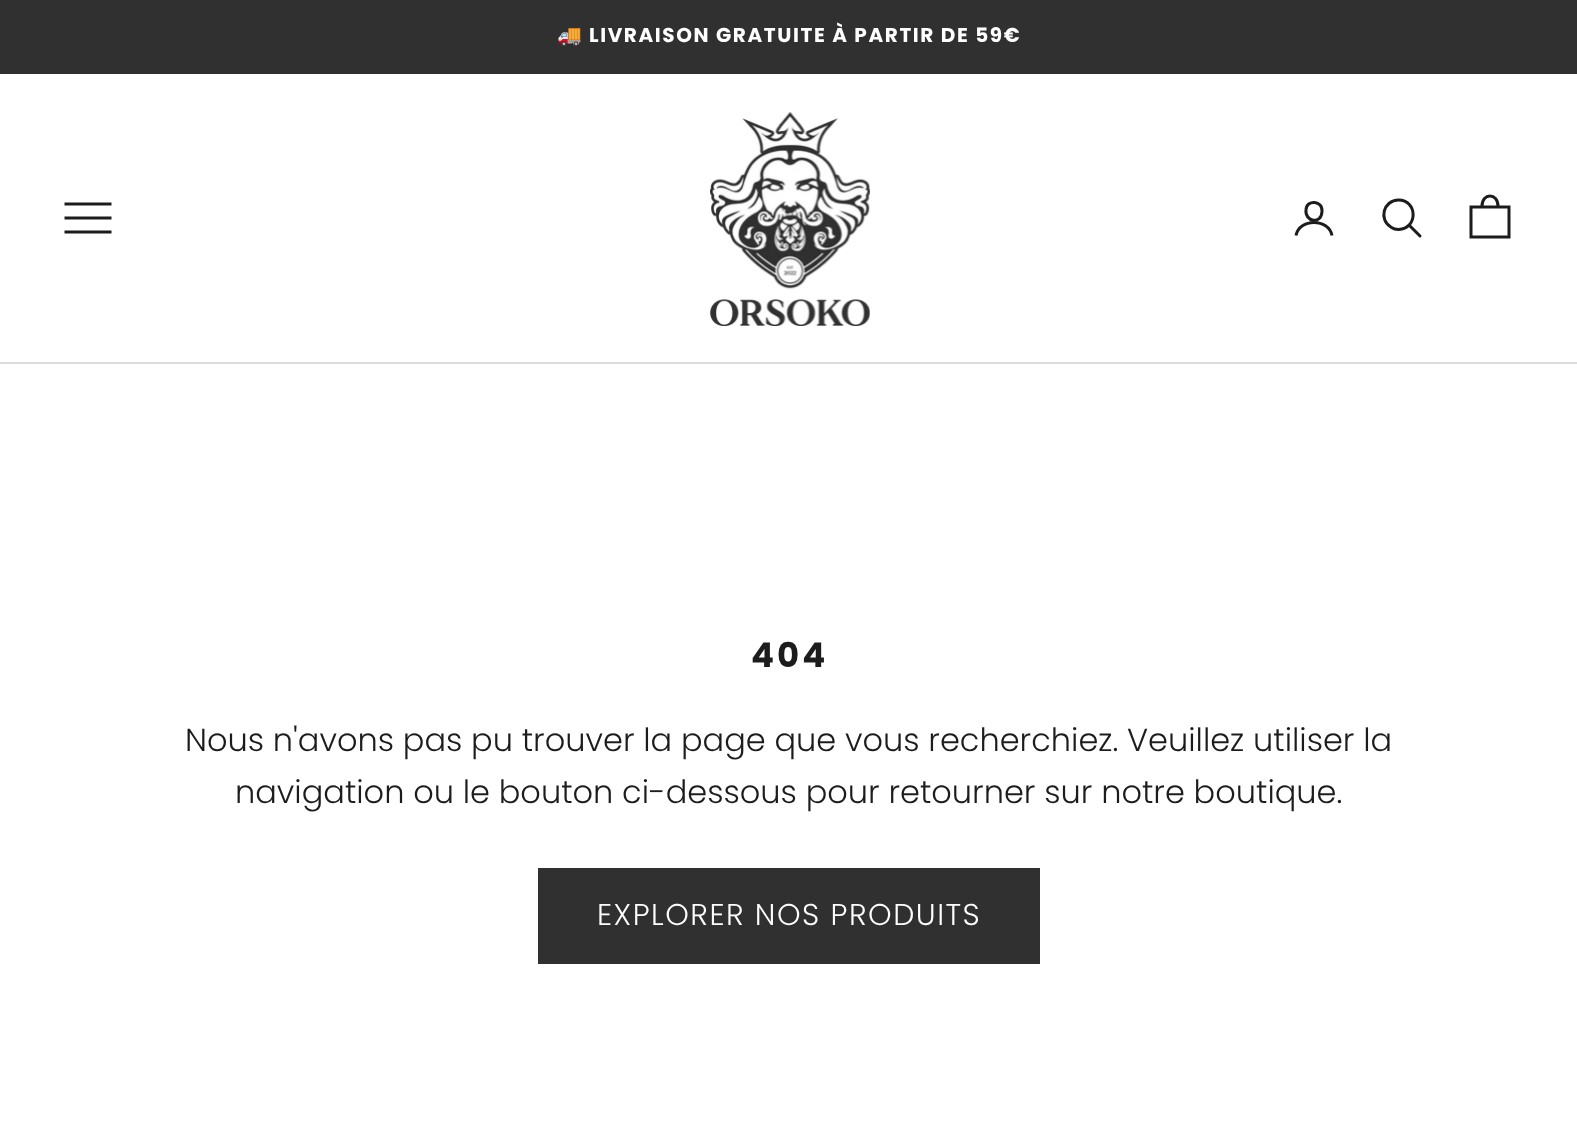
<svg xmlns="http://www.w3.org/2000/svg" width="1577" height="1146" viewBox="0 0 1577 1146">
  <rect width="100%" height="100%" fill="rgb(255,255,255)"/>
  <rect x="0" y="0" width="1577" height="74" fill="rgb(48,48,48)"/>
  <text x="557" y="42" font-family="Noto Color Emoji" font-size="20" font-weight="bold" letter-spacing="1.6" fill="rgb(255,255,255)">🚚</text>
  <text x="589" y="42" font-family="Poppins" font-size="20" font-weight="bold" letter-spacing="1.6" fill="rgb(255,255,255)">LIVRAISON GRATUITE À PARTIR DE 59€</text>
  <rect x="0" y="362" width="1577" height="2" fill="rgb(221,221,221)"/>
  <path d="M66 232H110M66 218H110M66 204H110" fill="none" stroke="rgb(28,28,28)" stroke-width="3" stroke-linecap="square"/>
  <image x="710" y="112" width="160" height="214" href="pic1.png"/>
  <path d="M1322 211.5C1321.5 225 1304.5 222 1306 209.5C1307 199 1323 200.5 1322 211.5Z" fill="none" stroke="rgb(28,28,28)" stroke-width="3" stroke-linecap="round" stroke-linejoin="round"/>
  <path d="M1296 235.5C1299 218 1329 218 1332 235.5" fill="none" stroke="rgb(28,28,28)" stroke-width="3"/>
  <path d="M1398.5 200C1383.5 200 1378 220 1391.5 227.5C1393.5 229 1396 229.5 1398.5 229.5C1418.5 228.5 1417.5 200 1398.5 200Z" fill="none" stroke="rgb(28,28,28)" stroke-width="3"/>
  <path d="M1409.5 225.5L1420 236" fill="none" stroke="rgb(28,28,28)" stroke-width="3" stroke-linecap="round"/>
  <path d="M1509 237V207H1471V237ZM1482 206C1482 192.5 1498 192.5 1498 206" fill="none" stroke="rgb(28,28,28)" stroke-width="3"/>
  <text x="751" y="667" font-family="Poppins" font-size="34" font-weight="bold" letter-spacing="3" fill="rgb(28,28,28)">404</text>
  <g font-family="Poppins" font-size="32" font-weight="300" fill="rgb(28,28,28)">
    <text x="185" y="751">Nous n'avons pas pu trouver la page que vous recherchiez. Veuillez utiliser la</text>
    <text x="235" y="803">navigation ou le bouton ci-dessous pour retourner sur notre boutique.</text>
  </g>
  <rect x="539" y="869" width="500" height="94" fill="rgb(48,48,48)" stroke="rgb(48,48,48)" stroke-width="2"/>
  <text x="597" y="925" font-family="Poppins" font-size="30" font-weight="300" letter-spacing="1.5" fill="rgb(255,255,255)">EXPLORER NOS PRODUITS</text>
</svg>
